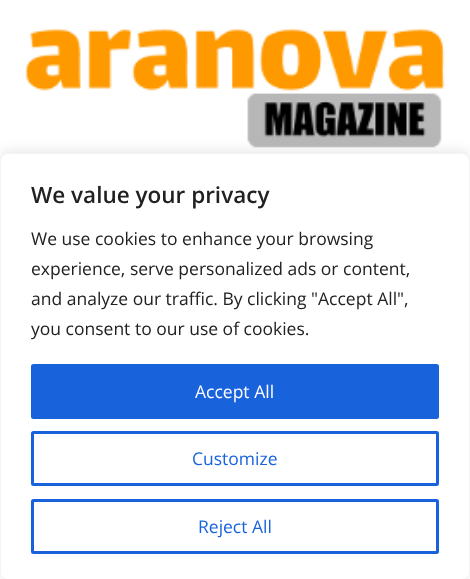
<svg xmlns="http://www.w3.org/2000/svg" width="470" height="579" viewBox="0 0 470 579">
  <rect width="100%" height="100%" fill="rgb(255,255,255)"/>
  <image x="25" y="28" width="420" height="120" href="pic1.png"/>
  <rect x="0" y="151" width="470" height="428" rx="8" fill="rgba(172,171,171,0.3)" filter="blur(6px)"/>
  <rect x="0.5" y="153.5" width="469" height="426" rx="7.5" fill="rgb(255,255,255)" stroke="rgb(244,244,244)"/>
  <text x="31" y="203" font-family="Open Sans" font-size="22.5" font-weight="600" fill="rgb(33,33,33)">We value your privacy</text>
  <g font-family="Open Sans" font-size="17.5" fill="rgb(33,33,33)">
    <text>
      <tspan x="31" y="245">We use cookies to enhance your browsing</tspan>
      <tspan x="31" y="275">experience, serve personalized ads or content,</tspan>
      <tspan x="31" y="305">and analyze our traffic. By clicking "Accept All",</tspan>
      <tspan x="31" y="335">you consent to our use of cookies.</tspan>
    </text>
  </g>
  <rect x="32.5" y="365.5" width="405" height="52" rx="1" fill="rgb(24,99,220)" stroke="rgb(24,99,220)" stroke-width="3"/>
  <text x="195" y="398" font-family="Open Sans" font-size="17.5" fill="rgb(255,255,255)">Accept All</text>
  <rect x="32.5" y="432.5" width="405" height="52" rx="1" fill="none" stroke="rgb(24,99,220)" stroke-width="3"/>
  <text x="192" y="465" font-family="Open Sans" font-size="17.5" fill="rgb(24,99,220)">Customize</text>
  <rect x="32.5" y="500.5" width="405" height="52" rx="1" fill="none" stroke="rgb(24,99,220)" stroke-width="3"/>
  <text x="198" y="533" font-family="Open Sans" font-size="17.5" fill="rgb(24,99,220)">Reject All</text>
</svg>
